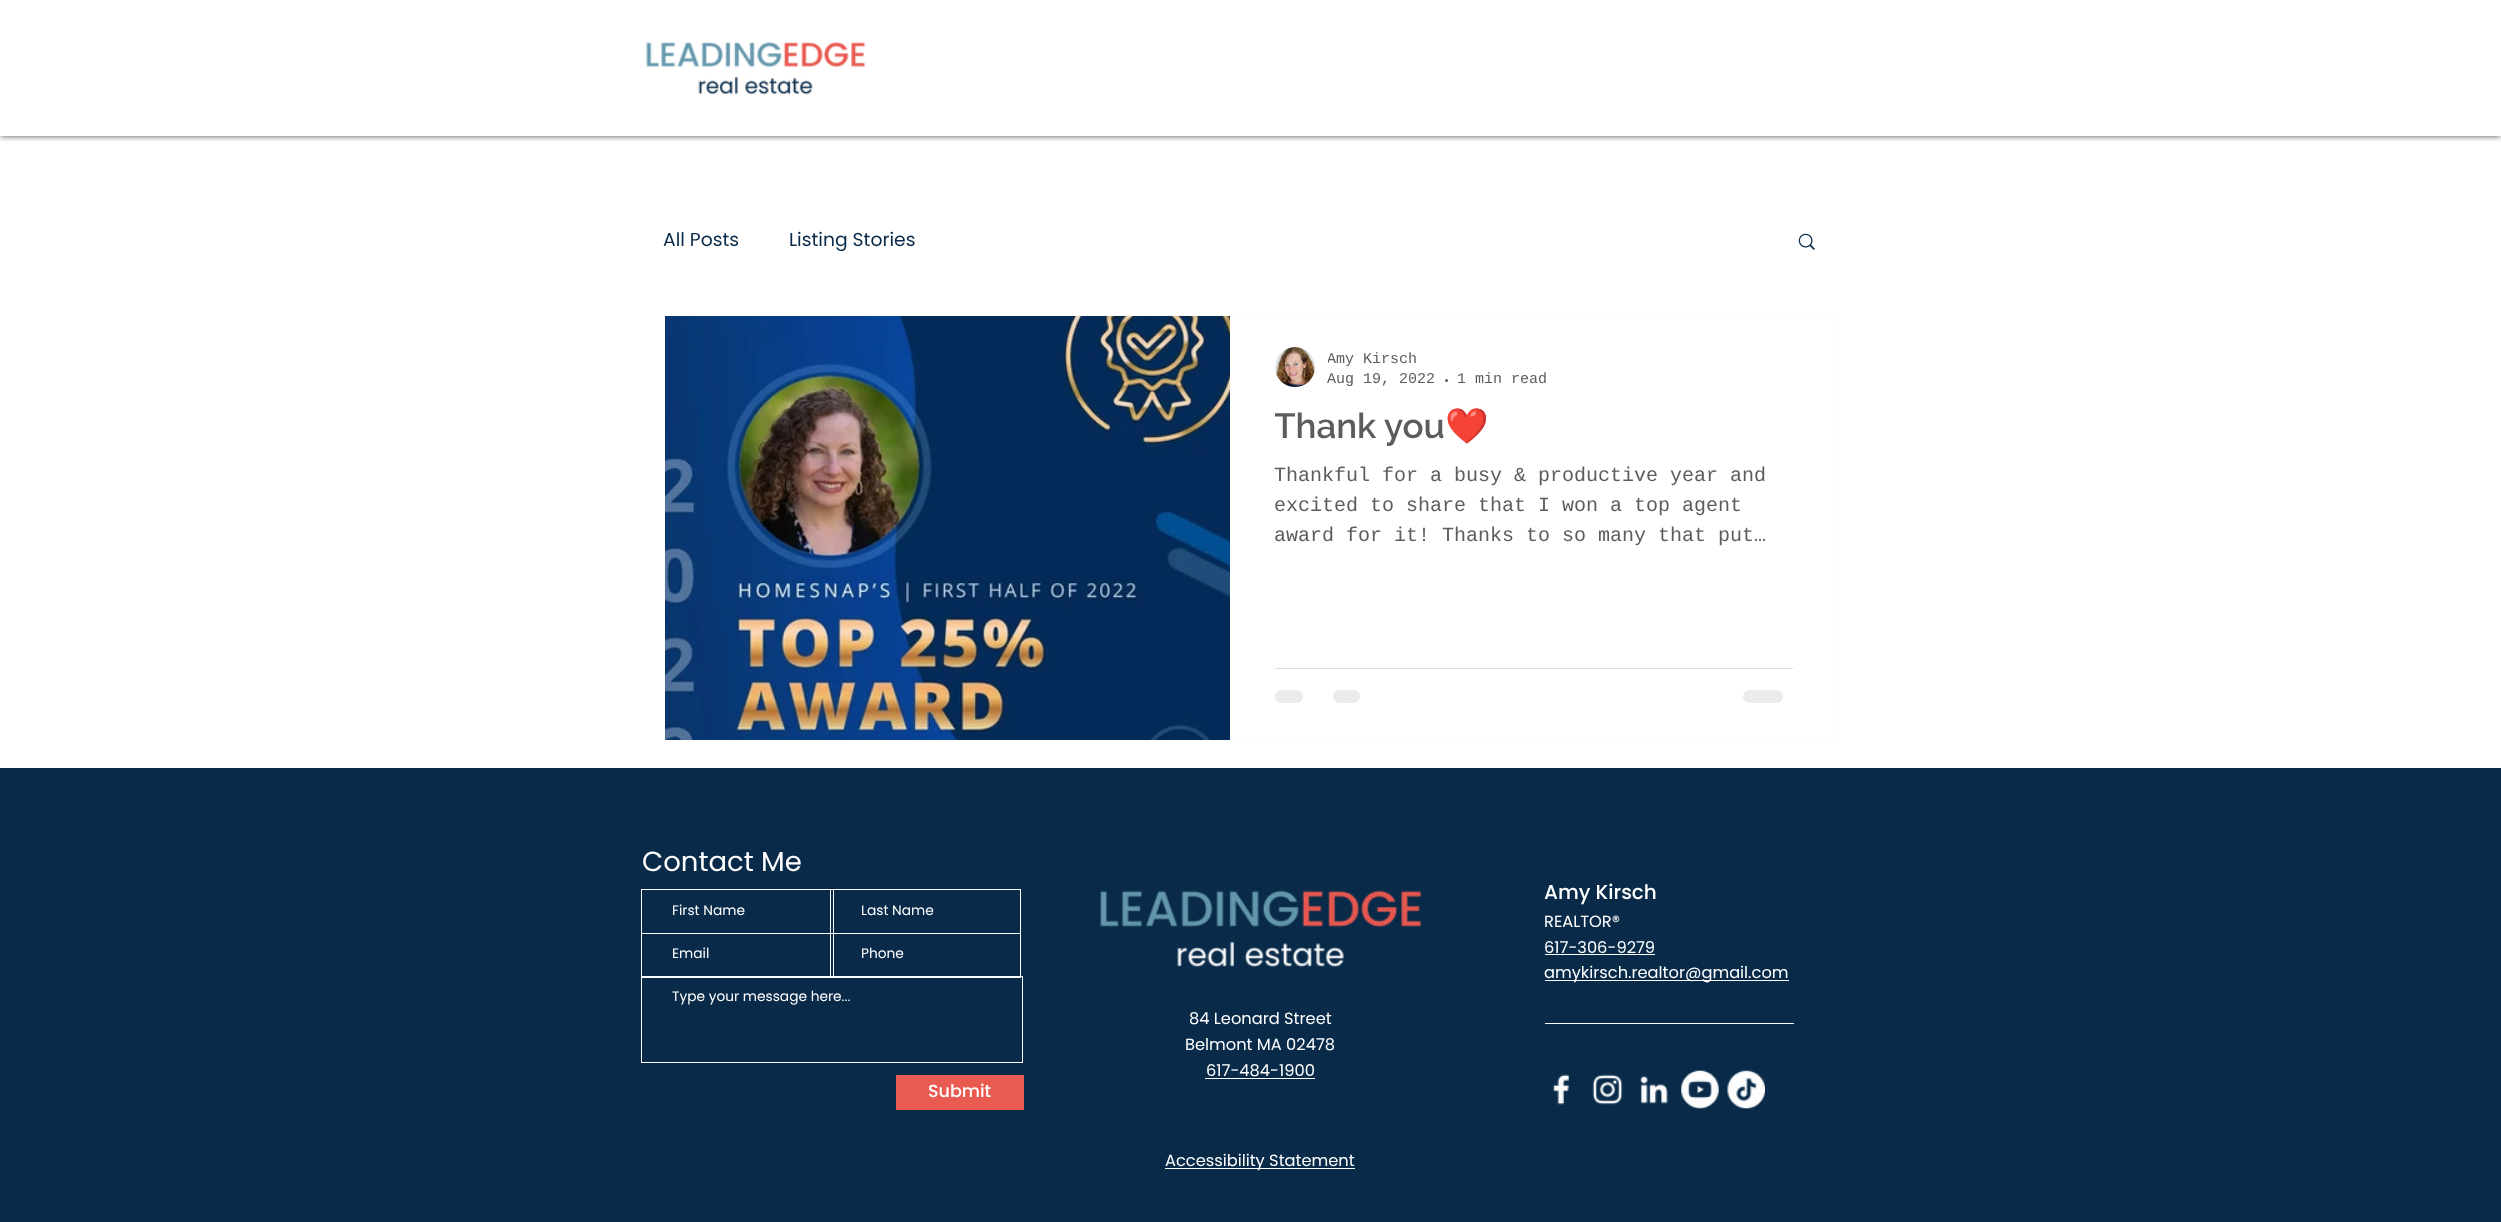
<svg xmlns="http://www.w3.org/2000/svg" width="2501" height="1222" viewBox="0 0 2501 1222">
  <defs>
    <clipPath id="clip1"><rect x="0" y="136" width="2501" height="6"/></clipPath>
    <clipPath id="clip2"><rect x="1328" y="350" width="90" height="18"/></clipPath>
    <clipPath id="clip3"><rect x="1275" y="405" width="518" height="41"/></clipPath>
    <clipPath id="clip4"><rect x="673" y="900" width="156" height="21"/></clipPath>
    <clipPath id="clip5"><rect x="673" y="944" width="156" height="21"/></clipPath>
  </defs>
  <rect width="100%" height="100%" fill="rgb(255,255,255)"/>
  <g clip-path="url(#clip1)">
    <rect x="0" y="-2" width="2501" height="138" fill="rgba(0,0,0,0.7)" filter="blur(3px)"/>
  </g>
  <image x="646" y="41" width="220" height="54" href="pic1.png"/>
  <g font-family="Poppins" font-size="18.75" fill="rgb(9,43,73)">
    <text x="663" y="246">All Posts</text>
    <text x="789" y="246">Listing Stories</text>
  </g>
  <image x="1798" y="233" width="17" height="17" href="pic2.png"/>
  <rect x="664.5" y="315.5" width="1174" height="425" fill="none" stroke="rgb(251,251,251)"/>
  <image x="665" y="316" width="565" height="424" href="pic3.png"/>
  <image x="1275" y="347" width="40" height="40" href="pic4.png"/>
  <g clip-path="url(#clip2)">
    <text x="1327" y="363" font-family="Liberation Mono" font-size="15" fill="rgb(92,92,92)">Amy Kirsch</text>
  </g>
  <text x="1327" y="383" font-family="Liberation Mono" font-size="15" fill="rgb(92,92,92)">Aug 19, 2022</text>
  <circle cx="1446.5" cy="380.5" r="1.5" fill="rgb(92,92,92)"/>
  <text x="1457" y="383" font-family="Liberation Mono" font-size="15" fill="rgb(92,92,92)">1 min read</text>
  <g clip-path="url(#clip3)">
    <text x="1274" y="438" font-family="Raleway" font-size="35" font-weight="600" fill="rgb(92,92,92)">Thank you</text>
  </g>
  <text x="1445" y="438" font-family="Noto Color Emoji" font-size="35" fill="rgb(92,92,92)">❤️</text>
  <g font-family="Liberation Mono" font-size="20" fill="rgb(92,92,92)">
    <text>
      <tspan x="1274" y="481">Thankful for a busy &amp; productive year and</tspan>
      <tspan x="1274" y="511">excited to share that I won a top agent</tspan>
      <tspan x="1274" y="541">award for it! Thanks to so many that put…</tspan>
    </text>
  </g>
  <rect x="1275" y="668" width="518" height="1" fill="rgb(222,222,222)"/>
  <rect x="1275" y="690" width="28" height="13" rx="6.5" fill="rgb(235,235,235)"/>
  <rect x="1333" y="690" width="27" height="13" rx="6.5" fill="rgb(235,235,235)"/>
  <rect x="1743" y="690" width="40" height="13" rx="6.5" fill="rgb(235,235,235)"/>
  <rect x="0" y="768" width="2501" height="454" fill="rgb(9,43,73)"/>
  <text x="642" y="871" font-family="'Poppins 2'" font-size="27.5" fill="rgb(255,255,255)">Contact Me</text>
  <rect x="641.5" y="889.5" width="192" height="44" fill="none" stroke="rgb(255,255,255)"/>
  <g clip-path="url(#clip4)">
    <text x="672" y="915" font-family="Poppins" font-size="13.75" fill="rgb(255,255,255)">First Name</text>
  </g>
  <rect x="830.5" y="889.5" width="190" height="44" fill="none" stroke="rgb(255,255,255)"/>
  <text x="861" y="915" font-family="Poppins" font-size="13.75" fill="rgb(255,255,255)">Last Name</text>
  <rect x="641.5" y="933.5" width="192" height="44" fill="none" stroke="rgb(255,255,255)"/>
  <g clip-path="url(#clip5)">
    <text x="672" y="958" font-family="Poppins" font-size="13.75" fill="rgb(255,255,255)">Email</text>
  </g>
  <rect x="830.5" y="933.5" width="190" height="44" fill="none" stroke="rgb(255,255,255)"/>
  <text x="861" y="958" font-family="Poppins" font-size="13.75" fill="rgb(255,255,255)">Phone</text>
  <rect x="641.5" y="976.5" width="381" height="86" fill="none" stroke="rgb(255,255,255)"/>
  <text x="672" y="1001" font-family="Poppins" font-size="13.75" fill="rgb(255,255,255)">Type your message here...</text>
  <rect x="896" y="1075" width="128" height="35" fill="rgb(233,90,80)"/>
  <text x="928" y="1097" font-family="Poppins" font-size="17.5" font-weight="500" fill="rgb(255,255,255)">Submit</text>
  <image x="1100" y="890" width="322" height="78" href="pic5.png"/>
  <text x="1544" y="899" font-family="Poppins" font-size="20" font-weight="500" fill="rgb(255,255,255)">Amy Kirsch</text>
  <g font-family="Poppins" font-size="16.25" fill="rgb(255,255,255)">
    <text>
      <tspan x="1544" y="927">REALTOR®</tspan>
      <tspan x="1544" y="953">617-306-9279</tspan>
    </text>
  </g>
  <rect x="1545" y="954" width="110" height="1" fill="rgb(255,255,255)"/>
  <rect x="1545" y="980" width="244" height="1" fill="rgb(255,255,255)"/>
  <g font-family="Poppins" font-size="16.25" fill="rgb(255,255,255)">
    <text x="1544" y="978">amykirsch.realtor@gmail.com</text>
    <text x="1189" y="1024">84 Leonard Street</text>
    <text x="1185" y="1050">Belmont MA 02478</text>
    <text x="1206" y="1076">617-484-1900</text>
  </g>
  <rect x="1205" y="1078" width="110" height="1" fill="rgb(255,255,255)"/>
  <rect x="1545" y="1023" width="249" height="1" fill="rgb(255,255,255)"/>
  <image x="1553" y="1074" width="17" height="31" href="pic6.png"/>
  <image x="1592" y="1074" width="31" height="31" href="pic7.png"/>
  <image x="1640" y="1075" width="28" height="29" href="pic8.png"/>
  <image x="1681" y="1070" width="38" height="39" href="pic9.png"/>
  <image x="1727" y="1070" width="38" height="39" href="pic10.png"/>
  <rect x="1165" y="1168" width="190" height="1" fill="rgb(255,255,255)"/>
  <text x="1165" y="1166" font-family="Poppins" font-size="16.25" fill="rgb(255,255,255)">Accessibility Statement</text>
</svg>
